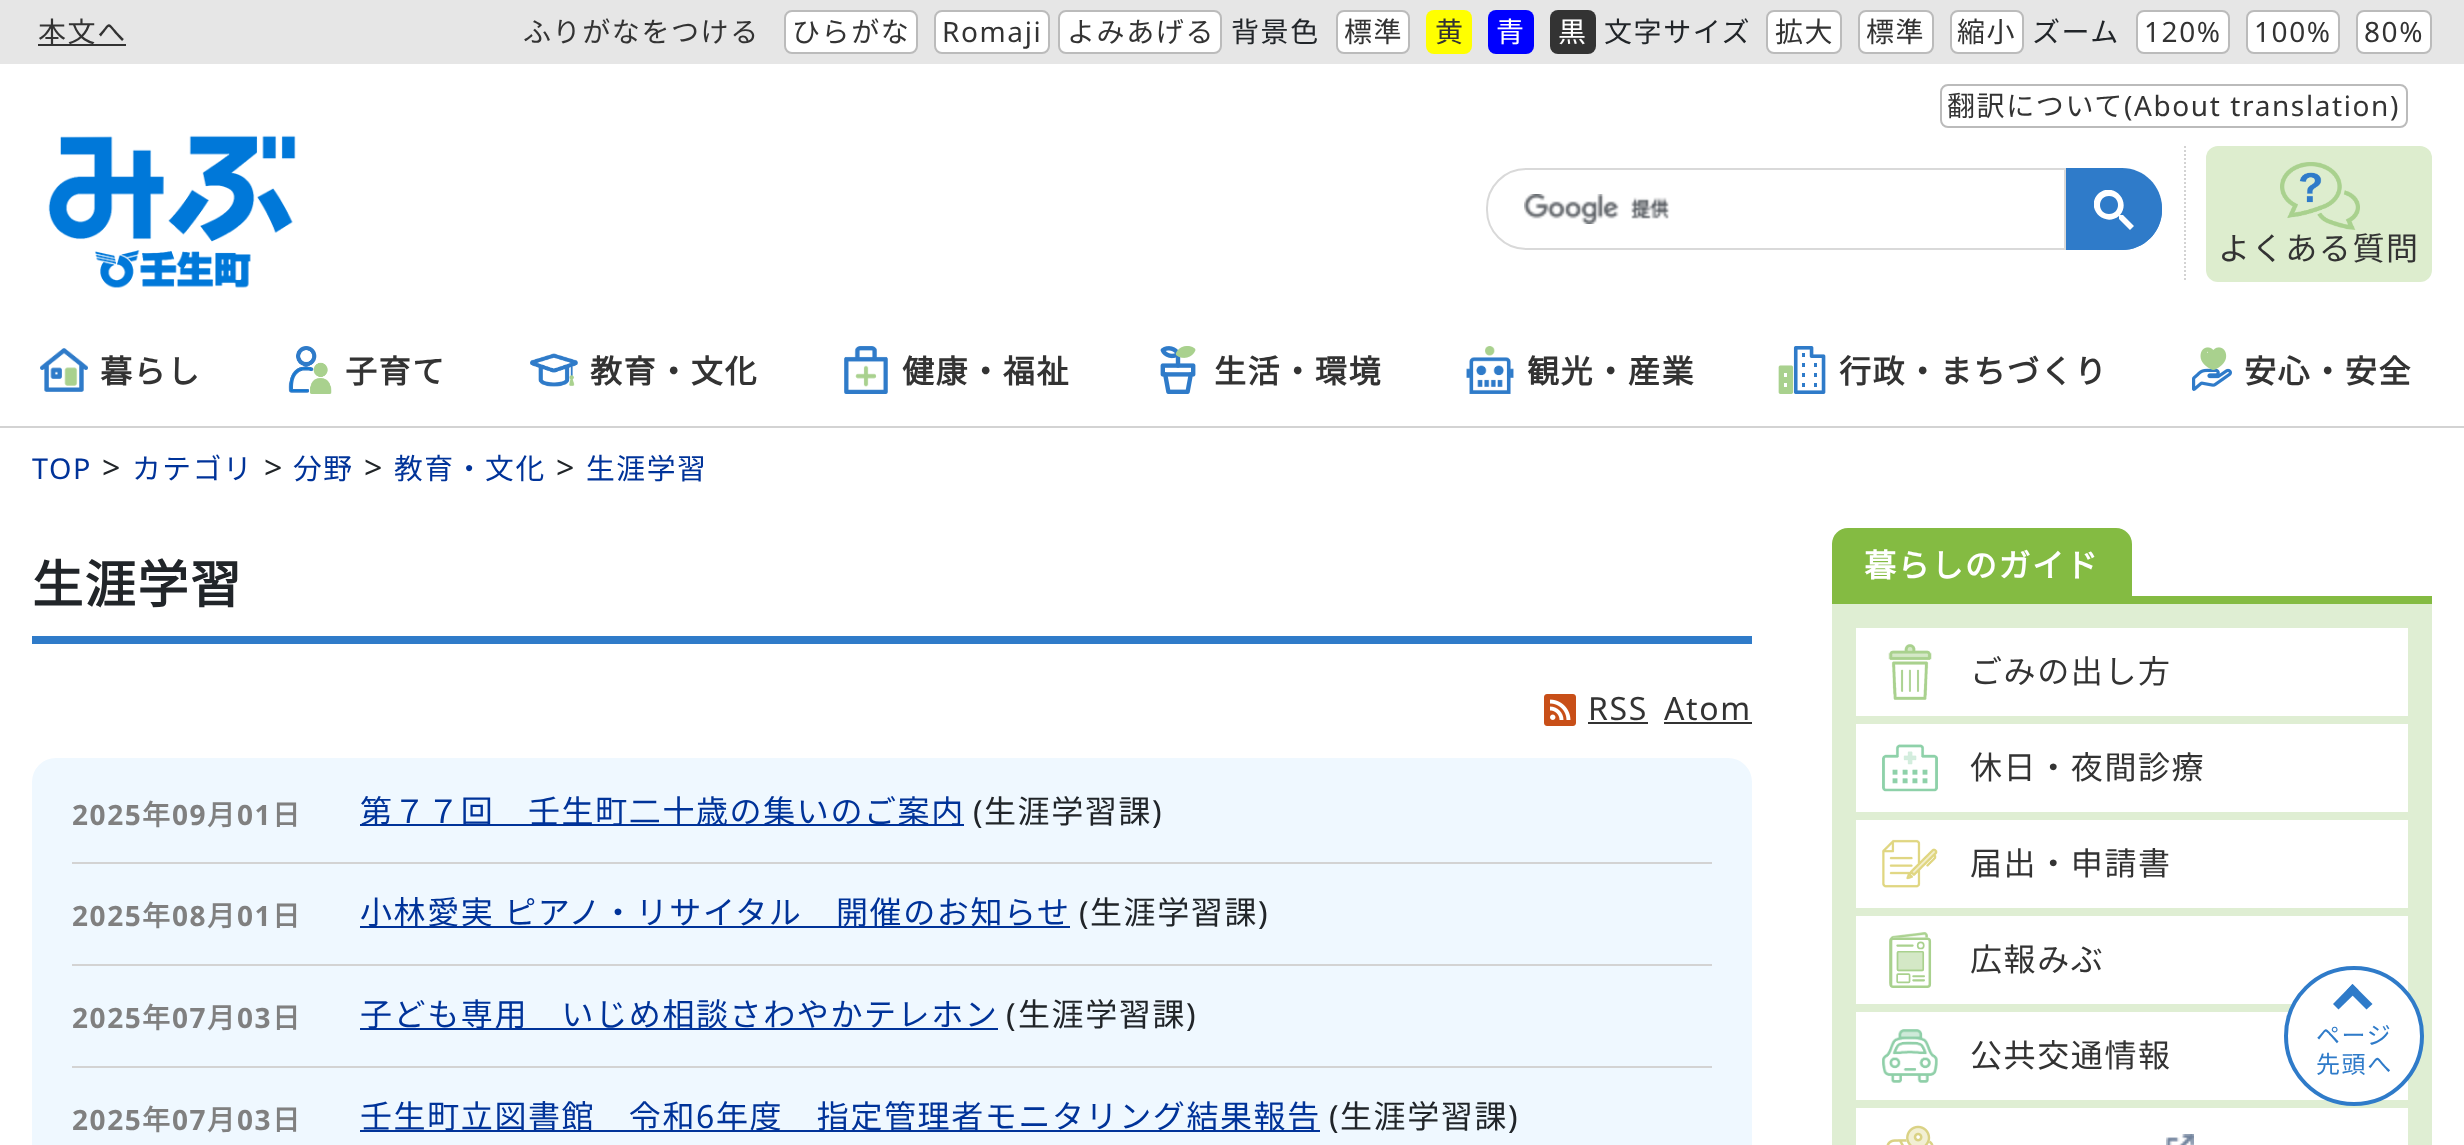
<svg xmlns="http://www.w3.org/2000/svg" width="2464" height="1145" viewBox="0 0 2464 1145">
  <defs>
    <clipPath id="clip1"><rect x="2094" y="190" width="40" height="40"/></clipPath>
  </defs>
  <rect width="100%" height="100%" fill="rgb(255,255,255)"/>
  <rect x="0" y="0" width="2464" height="64" fill="rgb(230,230,230)"/>
  <rect x="38" y="44" width="88" height="2" fill="rgb(51,51,51)"/>
  <g font-family="Noto Sans JP" font-size="28" font-weight="100" letter-spacing="1.6" fill="rgb(51,51,51)">
    <text x="38" y="42">本文へ</text>
    <text x="523" y="42">ふりがなをつける</text>
  </g>
  <rect x="785" y="11" width="132" height="42" rx="7" fill="rgb(255,255,255)" stroke="rgb(187,187,187)" stroke-width="2"/>
  <text x="792" y="42" font-family="Noto Sans JP" font-size="28" font-weight="100" letter-spacing="1.6" fill="rgb(51,51,51)">ひらがな</text>
  <rect x="935" y="11" width="114" height="42" rx="7" fill="rgb(255,255,255)" stroke="rgb(187,187,187)" stroke-width="2"/>
  <text x="942" y="42" font-family="Noto Sans" font-size="28" letter-spacing="1.6" fill="rgb(51,51,51)">Romaji</text>
  <rect x="1059" y="11" width="162" height="42" rx="7" fill="rgb(255,255,255)" stroke="rgb(187,187,187)" stroke-width="2"/>
  <text x="1067" y="42" font-family="Noto Sans JP" font-size="28" font-weight="100" letter-spacing="1.6" fill="rgb(51,51,51)">よみあげる</text>
  <text x="1231" y="42" font-family="Noto Sans JP" font-size="28" font-weight="100" letter-spacing="1.6" fill="rgb(33,37,41)">背景色</text>
  <rect x="1337" y="11" width="72" height="42" rx="7" fill="rgb(255,255,255)" stroke="rgb(187,187,187)" stroke-width="2"/>
  <text x="1344" y="42" font-family="Noto Sans JP" font-size="28" font-weight="100" letter-spacing="1.6" fill="rgb(51,51,51)">標準</text>
  <rect x="1426" y="10" width="46" height="44" rx="8" fill="rgb(255,255,0)"/>
  <text x="1435" y="42" font-family="Noto Sans JP" font-size="28" font-weight="100" letter-spacing="1.6" fill="rgb(51,51,51)">黄</text>
  <rect x="1488" y="10" width="46" height="44" rx="8" fill="rgb(0,0,255)"/>
  <text x="1496" y="42" font-family="Noto Sans JP" font-size="28" font-weight="100" letter-spacing="1.6" fill="rgb(255,255,255)">青</text>
  <rect x="1550" y="10" width="46" height="44" rx="8" fill="rgb(51,51,51)"/>
  <text x="1558" y="42" font-family="Noto Sans JP" font-size="28" font-weight="100" letter-spacing="1.6" fill="rgb(255,255,255)">黒</text>
  <text x="1604" y="42" font-family="Noto Sans JP" font-size="28" font-weight="100" letter-spacing="1.6" fill="rgb(33,37,41)">文字サイズ</text>
  <rect x="1767" y="11" width="74" height="42" rx="7" fill="rgb(255,255,255)" stroke="rgb(187,187,187)" stroke-width="2"/>
  <text x="1775" y="42" font-family="Noto Sans JP" font-size="28" font-weight="100" letter-spacing="1.6" fill="rgb(51,51,51)">拡大</text>
  <rect x="1859" y="11" width="74" height="42" rx="7" fill="rgb(255,255,255)" stroke="rgb(187,187,187)" stroke-width="2"/>
  <text x="1866" y="42" font-family="Noto Sans JP" font-size="28" font-weight="100" letter-spacing="1.6" fill="rgb(51,51,51)">標準</text>
  <rect x="1951" y="11" width="72" height="42" rx="7" fill="rgb(255,255,255)" stroke="rgb(187,187,187)" stroke-width="2"/>
  <text x="1957" y="42" font-family="Noto Sans JP" font-size="28" font-weight="100" letter-spacing="1.6" fill="rgb(51,51,51)">縮小</text>
  <text x="2032" y="42" font-family="Noto Sans JP" font-size="28" font-weight="100" letter-spacing="1.6" fill="rgb(33,37,41)">ズーム</text>
  <rect x="2137" y="11" width="92" height="42" rx="7" fill="rgb(255,255,255)" stroke="rgb(187,187,187)" stroke-width="2"/>
  <text x="2144" y="42" font-family="Noto Sans" font-size="28" letter-spacing="1.6" fill="rgb(51,51,51)">120%</text>
  <rect x="2247" y="11" width="92" height="42" rx="7" fill="rgb(255,255,255)" stroke="rgb(187,187,187)" stroke-width="2"/>
  <text x="2254" y="42" font-family="Noto Sans" font-size="28" letter-spacing="1.6" fill="rgb(51,51,51)">100%</text>
  <rect x="2357" y="11" width="74" height="42" rx="7" fill="rgb(255,255,255)" stroke="rgb(187,187,187)" stroke-width="2"/>
  <text x="2364" y="42" font-family="Noto Sans" font-size="28" letter-spacing="1.6" fill="rgb(51,51,51)">80%</text>
  <rect x="1941" y="85" width="466" height="42" rx="7" fill="none" stroke="rgb(187,187,187)" stroke-width="2"/>
  <text x="1947" y="116" font-family="Noto Sans JP" font-size="28" font-weight="100" letter-spacing="1.6" fill="rgb(51,51,51)">翻訳について</text>
  <text x="2124" y="116" font-family="Noto Sans" font-size="28" letter-spacing="1.6" fill="rgb(51,51,51)">(About translation)</text>
  <image x="48" y="135" width="248" height="153" href="pic1.png"/>
  <path d="M1526 169H2065V249H1526C1504.5 249 1487 231.5 1487 210V208C1487 186.5 1504.5 169 1526 169Z" fill="none" stroke="rgb(217,217,217)" stroke-width="2"/>
  <image x="1524" y="194" width="146" height="30" href="pic2.png"/>
  <path d="M2066 168H2122C2144 168 2162 186 2162 208V210C2162 232 2144 250 2122 250H2066Z" fill="rgb(47,123,201)"/>
  <path d="M2066 170H2122C2144 170 2162 188 2162 210C2162 232 2144 250 2122 250H2066Z" fill="rgb(47,123,201)"/>
  <g clip-path="url(#clip1)">
    <path d="M2109 214C2121 214 2121 196 2109 196C2097 196 2097 214 2109 214ZM2123 215L2134 226L2130 230L2119 219V216C2104 228 2085 208 2098 194C2112 181 2132 200 2120 215Z" fill="rgb(255,255,255)"/>
  </g>
  <path d="M2185 146V282" fill="none" stroke="rgb(211,211,211)" stroke-width="2" stroke-dasharray="2 2"/>
  <rect x="2206" y="146" width="226" height="136" rx="12" fill="rgb(221,237,206)"/>
  <image x="2280" y="162" width="80" height="68" href="pic3.png"/>
  <text x="2218" y="260" font-family="Noto Sans JP" font-size="32" font-weight="100" letter-spacing="1.6" fill="rgb(51,51,51)">よくある質問</text>
  <rect x="0" y="426" width="2464" height="2" fill="rgb(211,211,211)"/>
  <image x="40" y="348" width="48" height="44" href="pic4.png"/>
  <text x="100" y="383" font-family="Noto Sans JP" font-size="32" font-weight="bold" letter-spacing="1.6" fill="rgb(51,51,51)">暮らし</text>
  <image x="288" y="346" width="44" height="48" href="pic5.png"/>
  <text x="345" y="383" font-family="Noto Sans JP" font-size="32" font-weight="bold" letter-spacing="1.6" fill="rgb(51,51,51)">子育て</text>
  <image x="530" y="353" width="48" height="34" href="pic6.png"/>
  <text x="590" y="383" font-family="Noto Sans JP" font-size="32" font-weight="bold" letter-spacing="1.6" fill="rgb(51,51,51)">教育・文化</text>
  <image x="844" y="346" width="44" height="48" href="pic7.png"/>
  <text x="902" y="383" font-family="Noto Sans JP" font-size="32" font-weight="bold" letter-spacing="1.6" fill="rgb(51,51,51)">健康・福祉</text>
  <image x="1160" y="346" width="36" height="48" href="pic8.png"/>
  <text x="1214" y="383" font-family="Noto Sans JP" font-size="32" font-weight="bold" letter-spacing="1.6" fill="rgb(51,51,51)">生活・環境</text>
  <image x="1466" y="346" width="48" height="48" href="pic9.png"/>
  <text x="1527" y="383" font-family="Noto Sans JP" font-size="32" font-weight="bold" letter-spacing="1.6" fill="rgb(51,51,51)">観光・産業</text>
  <image x="1778" y="346" width="48" height="48" href="pic10.png"/>
  <text x="1839" y="383" font-family="Noto Sans JP" font-size="32" font-weight="bold" letter-spacing="1.6" fill="rgb(51,51,51)">行政・まちづくり</text>
  <image x="2192" y="347" width="40" height="44" href="pic11.png"/>
  <text x="2244" y="383" font-family="Noto Sans JP" font-size="32" font-weight="bold" letter-spacing="1.6" fill="rgb(51,51,51)">安心・安全</text>
  <text x="32" y="479" font-family="Noto Sans" font-size="28.75" letter-spacing="1.6" fill="rgb(0,51,153)">TOP</text>
  <text x="102" y="479" font-family="Noto Sans" font-size="32" letter-spacing="1.6" fill="rgb(33,37,41)">&gt;</text>
  <text x="132" y="479" font-family="Noto Sans JP" font-size="28.75" font-weight="100" letter-spacing="1.6" fill="rgb(0,51,153)">カテゴリ</text>
  <text x="264" y="479" font-family="Noto Sans" font-size="32" letter-spacing="1.6" fill="rgb(33,37,41)">&gt;</text>
  <text x="293" y="479" font-family="Noto Sans JP" font-size="28.75" font-weight="100" letter-spacing="1.6" fill="rgb(0,51,153)">分野</text>
  <text x="364" y="479" font-family="Noto Sans" font-size="32" letter-spacing="1.6" fill="rgb(33,37,41)">&gt;</text>
  <text x="394" y="479" font-family="Noto Sans JP" font-size="28.75" font-weight="100" letter-spacing="1.6" fill="rgb(0,51,153)">教育・文化</text>
  <text x="556" y="479" font-family="Noto Sans" font-size="32" letter-spacing="1.6" fill="rgb(33,37,41)">&gt;</text>
  <text x="586" y="479" font-family="Noto Sans JP" font-size="28.75" font-weight="100" letter-spacing="1.6" fill="rgb(0,51,153)">生涯学習</text>
  <rect x="32" y="636" width="1720" height="8" fill="rgb(47,123,201)"/>
  <text x="32" y="603" font-family="Noto Sans JP" font-size="51" font-weight="bold" letter-spacing="1.6" fill="rgb(33,37,41)">生涯学習</text>
  <image x="1544" y="694" width="32" height="32" href="pic12.png"/>
  <text x="1588" y="720" font-family="Noto Sans" font-size="32" letter-spacing="1.6" fill="rgb(51,51,51)">RSS</text>
  <rect x="1588" y="722" width="60" height="2" fill="rgb(51,51,51)"/>
  <text x="1664" y="720" font-family="Noto Sans" font-size="32" letter-spacing="1.6" fill="rgb(51,51,51)">Atom</text>
  <rect x="1664" y="722" width="88" height="2" fill="rgb(51,51,51)"/>
  <rect x="32" y="758" width="1720" height="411" rx="24" fill="rgb(239,248,255)"/>
  <rect x="72" y="862" width="1640" height="2" fill="rgb(211,211,211)"/>
  <text x="72" y="825" font-family="Noto Sans" font-size="28" font-weight="bold" letter-spacing="1.6" fill="rgb(128,128,128)">2025</text>
  <text x="142" y="825" font-family="Noto Sans JP" font-size="28" font-weight="bold" letter-spacing="1.6" fill="rgb(128,128,128)">年</text>
  <text x="172" y="825" font-family="Noto Sans" font-size="28" font-weight="bold" letter-spacing="1.6" fill="rgb(128,128,128)">09</text>
  <text x="207" y="825" font-family="Noto Sans JP" font-size="28" font-weight="bold" letter-spacing="1.6" fill="rgb(128,128,128)">月</text>
  <text x="237" y="825" font-family="Noto Sans" font-size="28" font-weight="bold" letter-spacing="1.6" fill="rgb(128,128,128)">01</text>
  <text x="272" y="825" font-family="Noto Sans JP" font-size="28" font-weight="bold" letter-spacing="1.6" fill="rgb(128,128,128)">日</text>
  <rect x="360" y="824" width="604" height="2" fill="rgb(0,51,153)"/>
  <text x="360" y="823" font-family="Noto Sans JP" font-size="32" font-weight="100" letter-spacing="1.6" fill="rgb(0,51,153)">第７７回　壬生町二十歳の集いのご案内</text>
  <text x="973" y="823" font-family="Noto Sans" font-size="32" letter-spacing="1.6" fill="rgb(33,37,41)">(</text>
  <text x="984" y="823" font-family="Noto Sans JP" font-size="32" font-weight="100" letter-spacing="1.6" fill="rgb(33,37,41)">生涯学習課</text>
  <text x="1152" y="823" font-family="Noto Sans" font-size="32" letter-spacing="1.6" fill="rgb(33,37,41)">)</text>
  <rect x="72" y="964" width="1640" height="2" fill="rgb(211,211,211)"/>
  <text x="72" y="926" font-family="Noto Sans" font-size="28" font-weight="bold" letter-spacing="1.6" fill="rgb(128,128,128)">2025</text>
  <text x="142" y="926" font-family="Noto Sans JP" font-size="28" font-weight="bold" letter-spacing="1.6" fill="rgb(128,128,128)">年</text>
  <text x="172" y="926" font-family="Noto Sans" font-size="28" font-weight="bold" letter-spacing="1.6" fill="rgb(128,128,128)">08</text>
  <text x="207" y="926" font-family="Noto Sans JP" font-size="28" font-weight="bold" letter-spacing="1.6" fill="rgb(128,128,128)">月</text>
  <text x="237" y="926" font-family="Noto Sans" font-size="28" font-weight="bold" letter-spacing="1.6" fill="rgb(128,128,128)">01</text>
  <text x="272" y="926" font-family="Noto Sans JP" font-size="28" font-weight="bold" letter-spacing="1.6" fill="rgb(128,128,128)">日</text>
  <rect x="360" y="926" width="710" height="2" fill="rgb(0,51,153)"/>
  <text x="360" y="924" word-spacing="1" font-family="Noto Sans JP" font-size="32" font-weight="100" letter-spacing="1.6" fill="rgb(0,51,153)">小林愛実 ピアノ・リサイタル　開催のお知らせ</text>
  <text x="1079" y="924" font-family="Noto Sans" font-size="32" letter-spacing="1.6" fill="rgb(33,37,41)">(</text>
  <text x="1090" y="924" font-family="Noto Sans JP" font-size="32" font-weight="100" letter-spacing="1.6" fill="rgb(33,37,41)">生涯学習課</text>
  <text x="1258" y="924" font-family="Noto Sans" font-size="32" letter-spacing="1.6" fill="rgb(33,37,41)">)</text>
  <rect x="72" y="1066" width="1640" height="2" fill="rgb(211,211,211)"/>
  <text x="72" y="1028" font-family="Noto Sans" font-size="28" font-weight="bold" letter-spacing="1.6" fill="rgb(128,128,128)">2025</text>
  <text x="142" y="1028" font-family="Noto Sans JP" font-size="28" font-weight="bold" letter-spacing="1.6" fill="rgb(128,128,128)">年</text>
  <text x="172" y="1028" font-family="Noto Sans" font-size="28" font-weight="bold" letter-spacing="1.6" fill="rgb(128,128,128)">07</text>
  <text x="207" y="1028" font-family="Noto Sans JP" font-size="28" font-weight="bold" letter-spacing="1.6" fill="rgb(128,128,128)">月</text>
  <text x="237" y="1028" font-family="Noto Sans" font-size="28" font-weight="bold" letter-spacing="1.6" fill="rgb(128,128,128)">03</text>
  <text x="272" y="1028" font-family="Noto Sans JP" font-size="28" font-weight="bold" letter-spacing="1.6" fill="rgb(128,128,128)">日</text>
  <rect x="360" y="1028" width="638" height="2" fill="rgb(0,51,153)"/>
  <text x="360" y="1026" font-family="Noto Sans JP" font-size="32" font-weight="100" letter-spacing="1.6" fill="rgb(0,51,153)">子ども専用　いじめ相談さわやかテレホン</text>
  <text x="1006" y="1026" font-family="Noto Sans" font-size="32" letter-spacing="1.6" fill="rgb(33,37,41)">(</text>
  <text x="1018" y="1026" font-family="Noto Sans JP" font-size="32" font-weight="100" letter-spacing="1.6" fill="rgb(33,37,41)">生涯学習課</text>
  <text x="1186" y="1026" font-family="Noto Sans" font-size="32" letter-spacing="1.6" fill="rgb(33,37,41)">)</text>
  <text x="72" y="1130" font-family="Noto Sans" font-size="28" font-weight="bold" letter-spacing="1.6" fill="rgb(128,128,128)">2025</text>
  <text x="142" y="1130" font-family="Noto Sans JP" font-size="28" font-weight="bold" letter-spacing="1.6" fill="rgb(128,128,128)">年</text>
  <text x="172" y="1130" font-family="Noto Sans" font-size="28" font-weight="bold" letter-spacing="1.6" fill="rgb(128,128,128)">07</text>
  <text x="207" y="1130" font-family="Noto Sans JP" font-size="28" font-weight="bold" letter-spacing="1.6" fill="rgb(128,128,128)">月</text>
  <text x="237" y="1130" font-family="Noto Sans" font-size="28" font-weight="bold" letter-spacing="1.6" fill="rgb(128,128,128)">03</text>
  <text x="272" y="1130" font-family="Noto Sans JP" font-size="28" font-weight="bold" letter-spacing="1.6" fill="rgb(128,128,128)">日</text>
  <rect x="360" y="1130" width="960" height="2" fill="rgb(0,51,153)"/>
  <text x="360" y="1128" font-family="Noto Sans JP" font-size="32" font-weight="100" letter-spacing="1.6" fill="rgb(0,51,153)">壬生町立図書館　令和</text>
  <text x="696" y="1128" font-family="Noto Sans" font-size="32" letter-spacing="1.6" fill="rgb(0,51,153)">6</text>
  <text x="716" y="1128" font-family="Noto Sans JP" font-size="32" font-weight="100" letter-spacing="1.6" fill="rgb(0,51,153)">年度　指定管理者モニタリング結果報告</text>
  <text x="1329" y="1128" font-family="Noto Sans" font-size="32" letter-spacing="1.6" fill="rgb(33,37,41)">(</text>
  <text x="1340" y="1128" font-family="Noto Sans JP" font-size="32" font-weight="100" letter-spacing="1.6" fill="rgb(33,37,41)">生涯学習課</text>
  <text x="1508" y="1128" font-family="Noto Sans" font-size="32" letter-spacing="1.6" fill="rgb(33,37,41)">)</text>
  <path d="M1848 528H2116C2125 528 2132 535 2132 544V596H1832V544C1832 535 1839 528 1848 528Z" fill="rgb(132,187,66)"/>
  <text x="1864" y="577" font-family="Noto Sans JP" font-size="32" font-weight="bold" letter-spacing="1.6" fill="rgb(255,255,255)">暮らしのガイド</text>
  <rect x="1832" y="604" width="600" height="541" fill="rgb(223,238,211)"/>
  <rect x="1832" y="596" width="600" height="8" fill="rgb(132,187,66)"/>
  <rect x="1856" y="628" width="552" height="88" fill="rgb(255,255,255)"/>
  <image x="1888" y="644" width="44" height="56" href="pic13.png"/>
  <text x="1970" y="683" font-family="Noto Sans JP" font-size="32" font-weight="100" letter-spacing="1.6" fill="rgb(51,51,51)">ごみの出し方</text>
  <rect x="1856" y="724" width="552" height="88" fill="rgb(255,255,255)"/>
  <image x="1882" y="744" width="56" height="48" href="pic14.png"/>
  <text x="1970" y="779" font-family="Noto Sans JP" font-size="32" font-weight="100" letter-spacing="1.6" fill="rgb(51,51,51)">休日・夜間診療</text>
  <rect x="1856" y="820" width="552" height="88" fill="rgb(255,255,255)"/>
  <image x="1882" y="839" width="56" height="49" href="pic15.png"/>
  <text x="1970" y="875" font-family="Noto Sans JP" font-size="32" font-weight="100" letter-spacing="1.6" fill="rgb(51,51,51)">届出・申請書</text>
  <rect x="1856" y="916" width="552" height="88" fill="rgb(255,255,255)"/>
  <image x="1889" y="932" width="43" height="56" href="pic16.png"/>
  <text x="1970" y="971" font-family="Noto Sans JP" font-size="32" font-weight="100" letter-spacing="1.6" fill="rgb(51,51,51)">広報みぶ</text>
  <rect x="1856" y="1012" width="552" height="88" fill="rgb(255,255,255)"/>
  <image x="1882" y="1029" width="56" height="54" href="pic17.png"/>
  <text x="1970" y="1067" font-family="Noto Sans JP" font-size="32" font-weight="100" letter-spacing="1.6" fill="rgb(51,51,51)">公共交通情報</text>
  <rect x="1856" y="1108" width="552" height="37" fill="rgb(255,255,255)"/>
  <image x="1886" y="1125" width="48" height="20" href="pic18.png"/>
  <image x="2166" y="1134" width="28" height="11" href="pic19.png"/>
  <circle cx="2354" cy="1036" r="68" fill="rgb(255,255,255)" stroke="rgb(47,123,201)" stroke-width="4"/>
  <path d="M2333 1004L2352.5 984L2358.5 990L2338.5 1009.5Z" fill="rgb(47,123,201)"/>
  <path d="M2347 990L2352.5 984L2372.5 1004L2366.5 1009.5Z" fill="rgb(47,123,201)"/>
  <g font-family="Noto Sans JP" font-size="24" font-weight="100" letter-spacing="1.6" fill="rgb(47,123,201)">
    <text>
      <tspan x="2316" y="1044">ページ</tspan>
      <tspan x="2316" y="1073">先頭へ</tspan>
    </text>
  </g>
</svg>
